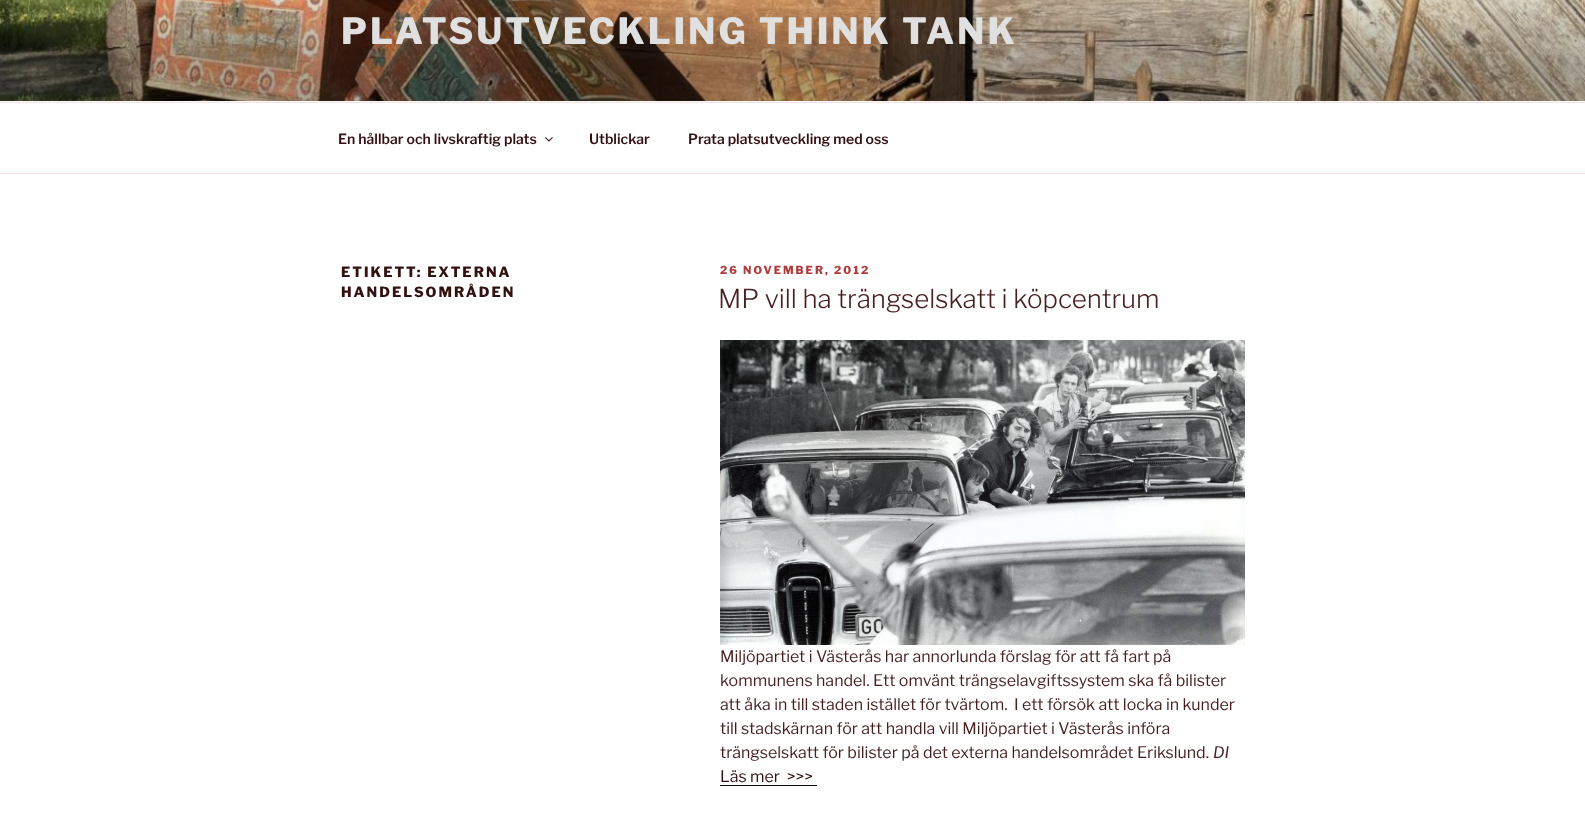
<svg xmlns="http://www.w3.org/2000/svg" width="1585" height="822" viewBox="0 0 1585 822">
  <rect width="100%" height="100%" fill="rgb(255,255,255)"/>
  <rect x="0" y="101" width="1585" height="1" fill="rgb(252,247,247)"/>
  <image x="0" y="0" width="1585" height="101" href="pic1.png"/>
  <text x="341" y="44" font-family="Libre Franklin" font-size="36" font-weight="100" letter-spacing="2.9" fill="rgb(224,224,224)">PLATSUTVECKLING THINK TANK</text>
  <rect x="0" y="102" width="1585" height="1" fill="rgb(246,228,228)"/>
  <rect x="0" y="173" width="1585" height="1" fill="rgb(246,228,228)"/>
  <text x="338" y="144" font-family="'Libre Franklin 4'" font-size="14" font-weight="100" fill="rgb(50,17,17)">En hållbar och livskraftig plats</text>
  <image x="545" y="137" width="8" height="5" href="pic2.png"/>
  <g font-family="'Libre Franklin 4'" font-size="14" font-weight="100" fill="rgb(50,17,17)">
    <text x="589" y="144">Utblickar</text>
    <text x="688" y="144">Prata platsutveckling med oss</text>
  </g>
  <g font-family="Libre Franklin" font-size="14" font-weight="100" letter-spacing="2" fill="rgb(50,17,17)">
    <text>
      <tspan x="341" y="277">ETIKETT: EXTERNA</tspan>
      <tspan x="341" y="297">HANDELSOMRÅDEN</tspan>
    </text>
  </g>
  <text x="720" y="274" font-family="Libre Franklin" font-size="11" font-weight="100" letter-spacing="2" fill="rgb(176,59,59)">26 NOVEMBER, 2012</text>
  <text x="718" y="308" font-family="'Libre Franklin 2'" font-size="26" font-weight="100" fill="rgb(71,31,31)">MP vill ha trängselskatt i köpcentrum</text>
  <image x="720" y="340" width="525" height="305" href="pic3.png"/>
  <g font-family="'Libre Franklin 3'" font-size="16" font-weight="100" fill="rgb(71,31,31)">
    <text>
      <tspan x="720" y="662">Miljöpartiet i Västerås har annorlunda förslag för att få fart på</tspan>
      <tspan x="720" y="686">kommunens handel. Ett omvänt trängselavgiftssystem ska få bilister</tspan>
      <tspan x="720" y="710">att åka in till staden istället för tvärtom.</tspan>
    </text>
    <text x="1014" y="710">I ett försök att locka in kunder</text>
    <text>
      <tspan x="720" y="734">till stadskärnan för att handla vill Miljöpartiet i Västerås införa</tspan>
      <tspan x="720" y="758">trängselskatt för bilister på det externa handelsområdet Erikslund.</tspan>
    </text>
  </g>
  <text x="1213" y="758" font-family="Libre Franklin" font-size="16" font-weight="100" font-style="italic" fill="rgb(71,31,31)">DI</text>
  <text x="720" y="782" font-family="'Libre Franklin 3'" font-size="16" font-weight="100" fill="rgb(50,17,17)" xml:space="preserve">Läs mer  &gt;&gt;&gt;</text>
  <rect x="720" y="785" width="97" height="1" fill="rgb(23,8,8)"/>
</svg>
